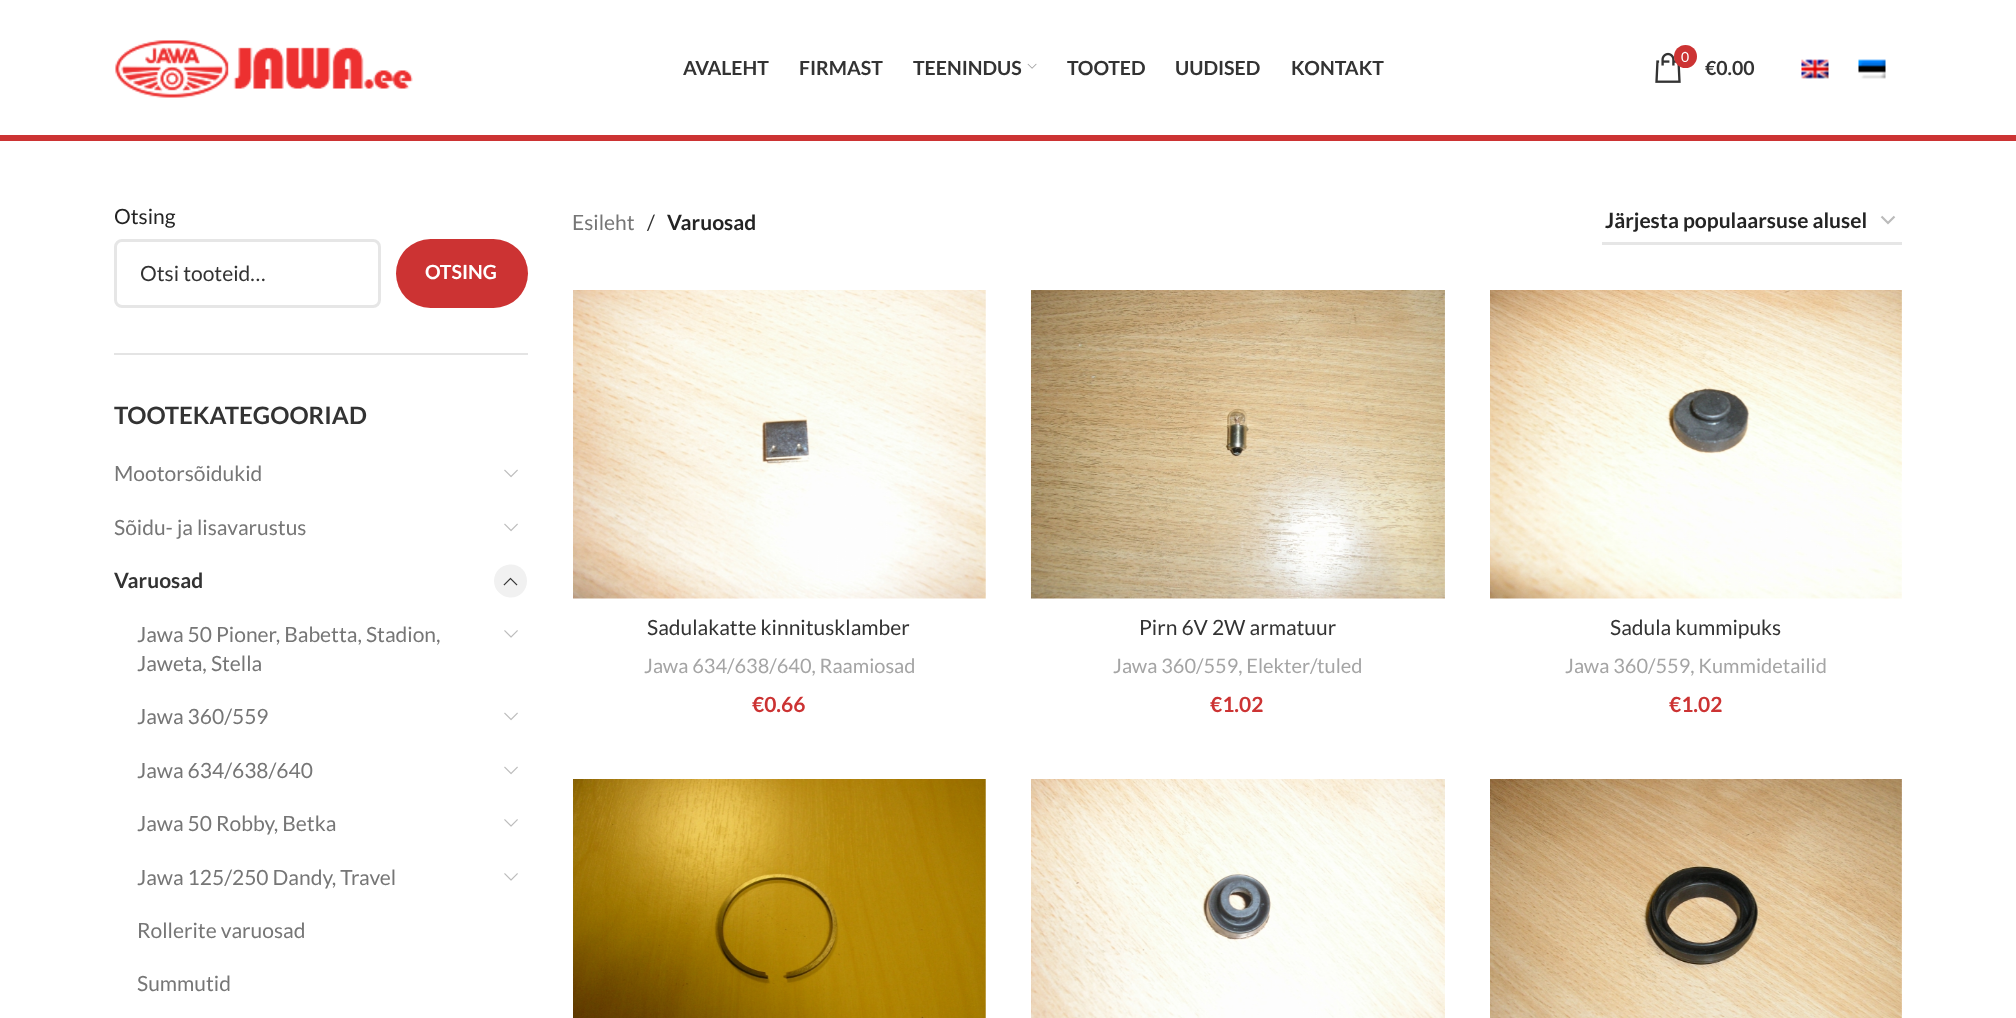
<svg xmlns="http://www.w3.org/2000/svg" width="2016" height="1018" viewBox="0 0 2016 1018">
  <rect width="100%" height="100%" fill="rgb(255,255,255)"/>
  <rect x="0" y="135" width="2016" height="6" fill="rgb(204,51,51)"/>
  <image x="115" y="40" width="298" height="58" href="pic1.png"/>
  <g font-family="Lato" font-size="19.5" font-weight="bold" fill="rgb(51,51,51)">
    <text x="683" y="75">AVALEHT</text>
    <text x="799" y="75">FIRMAST</text>
    <text x="913" y="75">TEENINDUS</text>
  </g>
  <image x="1027" y="63" width="10" height="6" href="pic2.png"/>
  <g font-family="Lato" font-size="19.5" font-weight="bold" fill="rgb(51,51,51)">
    <text x="1067" y="75">TOOTED</text>
    <text x="1175" y="75">UUDISED</text>
    <text x="1291" y="75">KONTAKT</text>
  </g>
  <image x="1655" y="52" width="26" height="31" href="pic3.png"/>
  <circle cx="1685.5" cy="56.5" r="11.5" fill="rgb(204,51,51)"/>
  <text x="1681" y="62" font-family="Lato" font-size="14" fill="rgb(255,255,255)">0</text>
  <text x="1705" y="75" font-family="Lato" font-size="19.5" font-weight="bold" fill="rgb(51,51,51)">€0.00</text>
  <image x="1801" y="59" width="28" height="20" href="pic4.png"/>
  <image x="1858" y="59" width="28" height="20" href="pic5.png"/>
  <rect x="114" y="353" width="414" height="2" fill="rgb(228,228,228)"/>
  <text x="114" y="224" font-family="Lato" font-size="21" fill="rgb(36,36,36)">Otsing</text>
  <rect x="115.5" y="240.5" width="264" height="66" rx="6.5" fill="none" stroke="rgb(230,230,230)" stroke-width="3"/>
  <text x="140" y="281" font-family="Lato" font-size="21" fill="rgb(51,51,51)">Otsi tooteid…</text>
  <rect x="396" y="239" width="132" height="69" rx="34.5" fill="rgb(204,51,51)"/>
  <text x="425" y="279" font-family="Lato" font-size="19.5" font-weight="bold" fill="rgb(255,255,255)">OTSING</text>
  <text x="114" y="424" font-family="Lato" font-size="24" font-weight="bold" fill="rgb(51,51,51)">TOOTEKATEGOORIAD</text>
  <text x="114" y="481" font-family="Lato" font-size="21" fill="rgb(118,118,118)">Mootorsõidukid</text>
  <image x="504" y="469" width="14" height="9" href="pic6.png"/>
  <text x="114" y="535" font-family="Lato" font-size="21" fill="rgb(118,118,118)">Sõidu- ja lisavarustus</text>
  <image x="504" y="523" width="14" height="9" href="pic6.png"/>
  <text x="114" y="588" font-family="Lato" font-size="21" font-weight="bold" fill="rgb(51,51,51)">Varuosad</text>
  <path d="M511 597.5C501.5 597.5 494 590 494 581C494 571.5 501.5 564.5 511 564.5C520 564.5 527 571.5 527 581C527 590 520 597.5 511 597.5Z" fill="rgb(241,241,241)"/>
  <image x="503" y="577" width="15" height="9" href="pic7.png"/>
  <g font-family="Lato" font-size="21" fill="rgb(118,118,118)">
    <text>
      <tspan x="137" y="642">Jawa 50 Pioner, Babetta, Stadion,</tspan>
      <tspan x="137" y="671">Jaweta, Stella</tspan>
    </text>
  </g>
  <image x="504" y="630" width="14" height="8" href="pic8.png"/>
  <text x="137" y="724" font-family="Lato" font-size="21" fill="rgb(118,118,118)">Jawa 360/559</text>
  <image x="504" y="712" width="14" height="9" href="pic6.png"/>
  <text x="137" y="778" font-family="Lato" font-size="21" fill="rgb(118,118,118)">Jawa 634/638/640</text>
  <image x="504" y="766" width="14" height="9" href="pic6.png"/>
  <text x="137" y="831" font-family="Lato" font-size="21" fill="rgb(118,118,118)">Jawa 50 Robby, Betka</text>
  <image x="504" y="819" width="14" height="8" href="pic8.png"/>
  <text x="137" y="885" font-family="Lato" font-size="21" fill="rgb(118,118,118)">Jawa 125/250 Dandy, Travel</text>
  <image x="504" y="873" width="14" height="8" href="pic8.png"/>
  <g font-family="Lato" font-size="21" fill="rgb(118,118,118)">
    <text x="137" y="938">Rollerite varuosad</text>
    <text x="137" y="991">Summutid</text>
    <text x="572" y="230">Esileht</text>
  </g>
  <text x="647" y="230" font-family="Lato" font-size="21" fill="rgb(51,51,51)">/</text>
  <text x="667" y="230" font-family="Lato" font-size="21" font-weight="bold" fill="rgb(36,36,36)">Varuosad</text>
  <path d="M1881.5 216.5L1888 223L1894.5 216.5" fill="none" stroke="rgb(187,187,187)" stroke-width="2.2"/>
  <rect x="1602" y="242" width="300" height="3" fill="rgb(230,230,230)"/>
  <text x="1605" y="228" font-family="Lato" font-size="21" font-weight="bold" fill="rgb(36,36,36)">Järjesta populaarsuse alusel</text>
  <image x="573" y="290" width="413" height="309" href="pic9.png"/>
  <text x="647" y="635" font-family="Lato" font-size="21" fill="rgb(51,51,51)">Sadulakatte kinnitusklamber</text>
  <text x="644" y="673" font-family="Lato" font-size="20" fill="rgb(165,165,165)">Jawa 634/638/640, Raamiosad</text>
  <text x="752" y="712" font-family="Lato" font-size="21" font-weight="bold" fill="rgb(204,51,51)">€0.66</text>
  <image x="1031" y="290" width="414" height="309" href="pic10.png"/>
  <text x="1139" y="635" font-family="Lato" font-size="21" fill="rgb(51,51,51)">Pirn 6V 2W armatuur</text>
  <text x="1113" y="673" font-family="Lato" font-size="20" fill="rgb(165,165,165)">Jawa 360/559, Elekter/tuled</text>
  <text x="1210" y="712" font-family="Lato" font-size="21" font-weight="bold" fill="rgb(204,51,51)">€1.02</text>
  <image x="1490" y="290" width="412" height="309" href="pic11.png"/>
  <text x="1610" y="635" font-family="Lato" font-size="21" fill="rgb(51,51,51)">Sadula kummipuks</text>
  <text x="1565" y="673" font-family="Lato" font-size="20" fill="rgb(165,165,165)">Jawa 360/559, Kummidetailid</text>
  <text x="1669" y="712" font-family="Lato" font-size="21" font-weight="bold" fill="rgb(204,51,51)">€1.02</text>
  <image x="573" y="779" width="413" height="239" href="pic12.png"/>
  <image x="1031" y="779" width="414" height="239" href="pic13.png"/>
  <image x="1490" y="779" width="412" height="239" href="pic14.png"/>
</svg>
